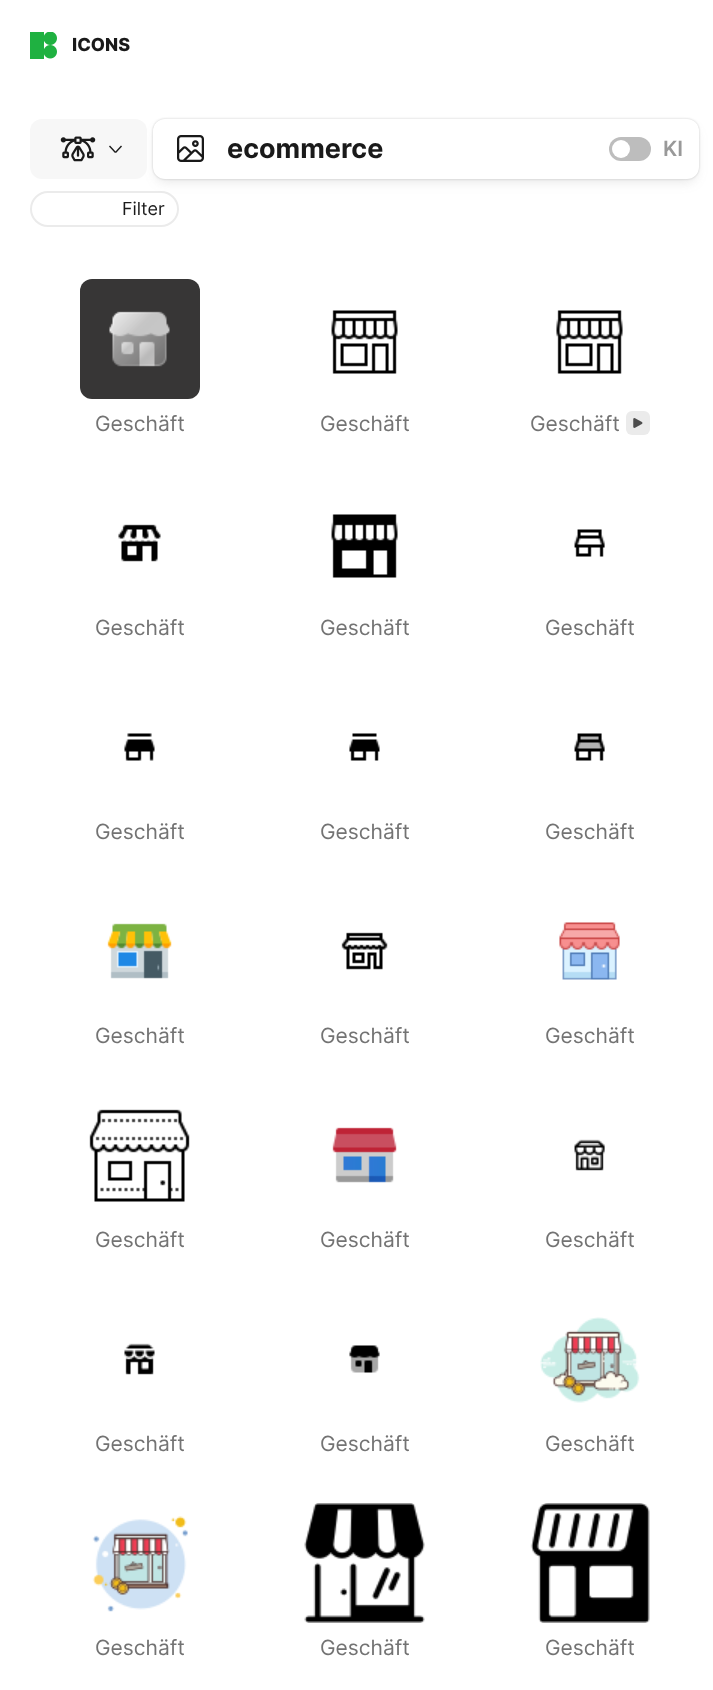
<svg xmlns="http://www.w3.org/2000/svg" width="713" height="1690" viewBox="0 0 713 1690">
  <rect width="100%" height="100%" fill="rgb(255,255,255)"/>
  <image x="30" y="32" width="27" height="27" href="pic1.png"/>
  <text x="72" y="51" font-family="Inter" font-size="18" font-weight="800" fill="rgb(26,26,26)">ICONS</text>
  <rect x="31" y="192" width="147" height="34" rx="17" fill="none" stroke="rgb(235,235,235)" stroke-width="2"/>
  <rect x="156" y="128" width="540" height="54" rx="9" fill="rgba(96,96,96,0.15)" filter="blur(6px)"/>
  <rect x="30" y="119" width="117" height="60" rx="12" fill="rgb(247,247,247)"/>
  <image x="60" y="136" width="36" height="26" href="pic2.png"/>
  <path d="M110 145.5L116 152L115 153L109 146.5Z" fill="rgb(26,26,26)"/>
  <path d="M115 152L121 145.5L122 146.5L116 153Z" fill="rgb(26,26,26)"/>
  <rect x="153" y="119" width="546" height="60" rx="12" fill="rgba(96,96,96,0.31)" filter="blur(1px)"/>
  <rect x="153" y="119" width="546" height="60" rx="12" fill="rgb(255,255,255)"/>
  <image x="177" y="135" width="27" height="27" href="pic3.png"/>
  <text x="227" y="158" font-family="Inter" font-size="27" font-weight="bold" fill="rgb(26,26,26)">ecommerce</text>
  <rect x="609" y="137" width="42" height="24" rx="12" fill="rgb(189,189,189)"/>
  <circle cx="621" cy="149" r="9" fill="rgb(255,255,255)"/>
  <text x="663" y="156" font-family="Inter" font-size="21" font-weight="600" fill="rgb(153,153,153)">KI</text>
  <text x="122" y="215" font-family="Inter" font-size="18" fill="rgb(26,26,26)">Filter</text>
  <rect x="80" y="279" width="120" height="120" rx="12" fill="rgb(55,54,54)"/>
  <image x="109" y="311" width="61" height="56" href="pic4.png"/>
  <text x="95" y="431" font-family="Inter" font-size="21" fill="rgb(115,115,115)">Geschäft</text>
  <image x="331" y="310" width="67" height="64" href="pic5.png"/>
  <text x="320" y="431" font-family="Inter" font-size="21" fill="rgb(115,115,115)">Geschäft</text>
  <image x="556" y="310" width="67" height="64" href="pic6.png"/>
  <text x="530" y="431" font-family="Inter" font-size="21" fill="rgb(115,115,115)">Geschäft</text>
  <rect x="626" y="411" width="24" height="24" rx="6" fill="rgb(235,235,235)"/>
  <image x="633" y="418" width="10" height="10" href="pic7.png"/>
  <image x="118" y="524" width="43" height="38" href="pic8.png"/>
  <text x="95" y="635" font-family="Inter" font-size="21" fill="rgb(115,115,115)">Geschäft</text>
  <image x="331" y="514" width="67" height="64" href="pic9.png"/>
  <text x="320" y="635" font-family="Inter" font-size="21" fill="rgb(115,115,115)">Geschäft</text>
  <image x="574" y="529" width="31" height="28" href="pic10.png"/>
  <text x="545" y="635" font-family="Inter" font-size="21" fill="rgb(115,115,115)">Geschäft</text>
  <image x="124" y="733" width="31" height="28" href="pic11.png"/>
  <text x="95" y="839" font-family="Inter" font-size="21" fill="rgb(115,115,115)">Geschäft</text>
  <image x="349" y="733" width="31" height="28" href="pic12.png"/>
  <text x="320" y="839" font-family="Inter" font-size="21" fill="rgb(115,115,115)">Geschäft</text>
  <image x="574" y="733" width="31" height="28" href="pic13.png"/>
  <text x="545" y="839" font-family="Inter" font-size="21" fill="rgb(115,115,115)">Geschäft</text>
  <image x="107" y="923" width="65" height="56" href="pic14.png"/>
  <text x="95" y="1043" font-family="Inter" font-size="21" fill="rgb(115,115,115)">Geschäft</text>
  <image x="341" y="932" width="47" height="38" href="pic15.png"/>
  <text x="320" y="1043" font-family="Inter" font-size="21" fill="rgb(115,115,115)">Geschäft</text>
  <image x="559" y="922" width="61" height="58" href="pic16.png"/>
  <text x="545" y="1043" font-family="Inter" font-size="21" fill="rgb(115,115,115)">Geschäft</text>
  <image x="89" y="1109" width="101" height="93" href="pic17.png"/>
  <text x="95" y="1247" font-family="Inter" font-size="21" fill="rgb(115,115,115)">Geschäft</text>
  <image x="332" y="1127" width="65" height="56" href="pic18.png"/>
  <text x="320" y="1247" font-family="Inter" font-size="21" fill="rgb(115,115,115)">Geschäft</text>
  <image x="574" y="1139" width="31" height="32" href="pic19.png"/>
  <text x="545" y="1247" font-family="Inter" font-size="21" fill="rgb(115,115,115)">Geschäft</text>
  <image x="124" y="1343" width="31" height="32" href="pic20.png"/>
  <text x="95" y="1451" font-family="Inter" font-size="21" fill="rgb(115,115,115)">Geschäft</text>
  <image x="349" y="1345" width="31" height="28" href="pic21.png"/>
  <text x="320" y="1451" font-family="Inter" font-size="21" fill="rgb(115,115,115)">Geschäft</text>
  <image x="540" y="1317" width="100" height="86" href="pic22.png"/>
  <text x="545" y="1451" font-family="Inter" font-size="21" fill="rgb(115,115,115)">Geschäft</text>
  <image x="92" y="1516" width="96" height="96" href="pic23.png"/>
  <text x="95" y="1655" font-family="Inter" font-size="21" fill="rgb(115,115,115)">Geschäft</text>
  <image x="304" y="1503" width="121" height="120" href="pic24.png"/>
  <text x="320" y="1655" font-family="Inter" font-size="21" fill="rgb(115,115,115)">Geschäft</text>
  <image x="530" y="1503" width="120" height="120" href="pic25.png"/>
  <text x="545" y="1655" font-family="Inter" font-size="21" fill="rgb(115,115,115)">Geschäft</text>
</svg>
